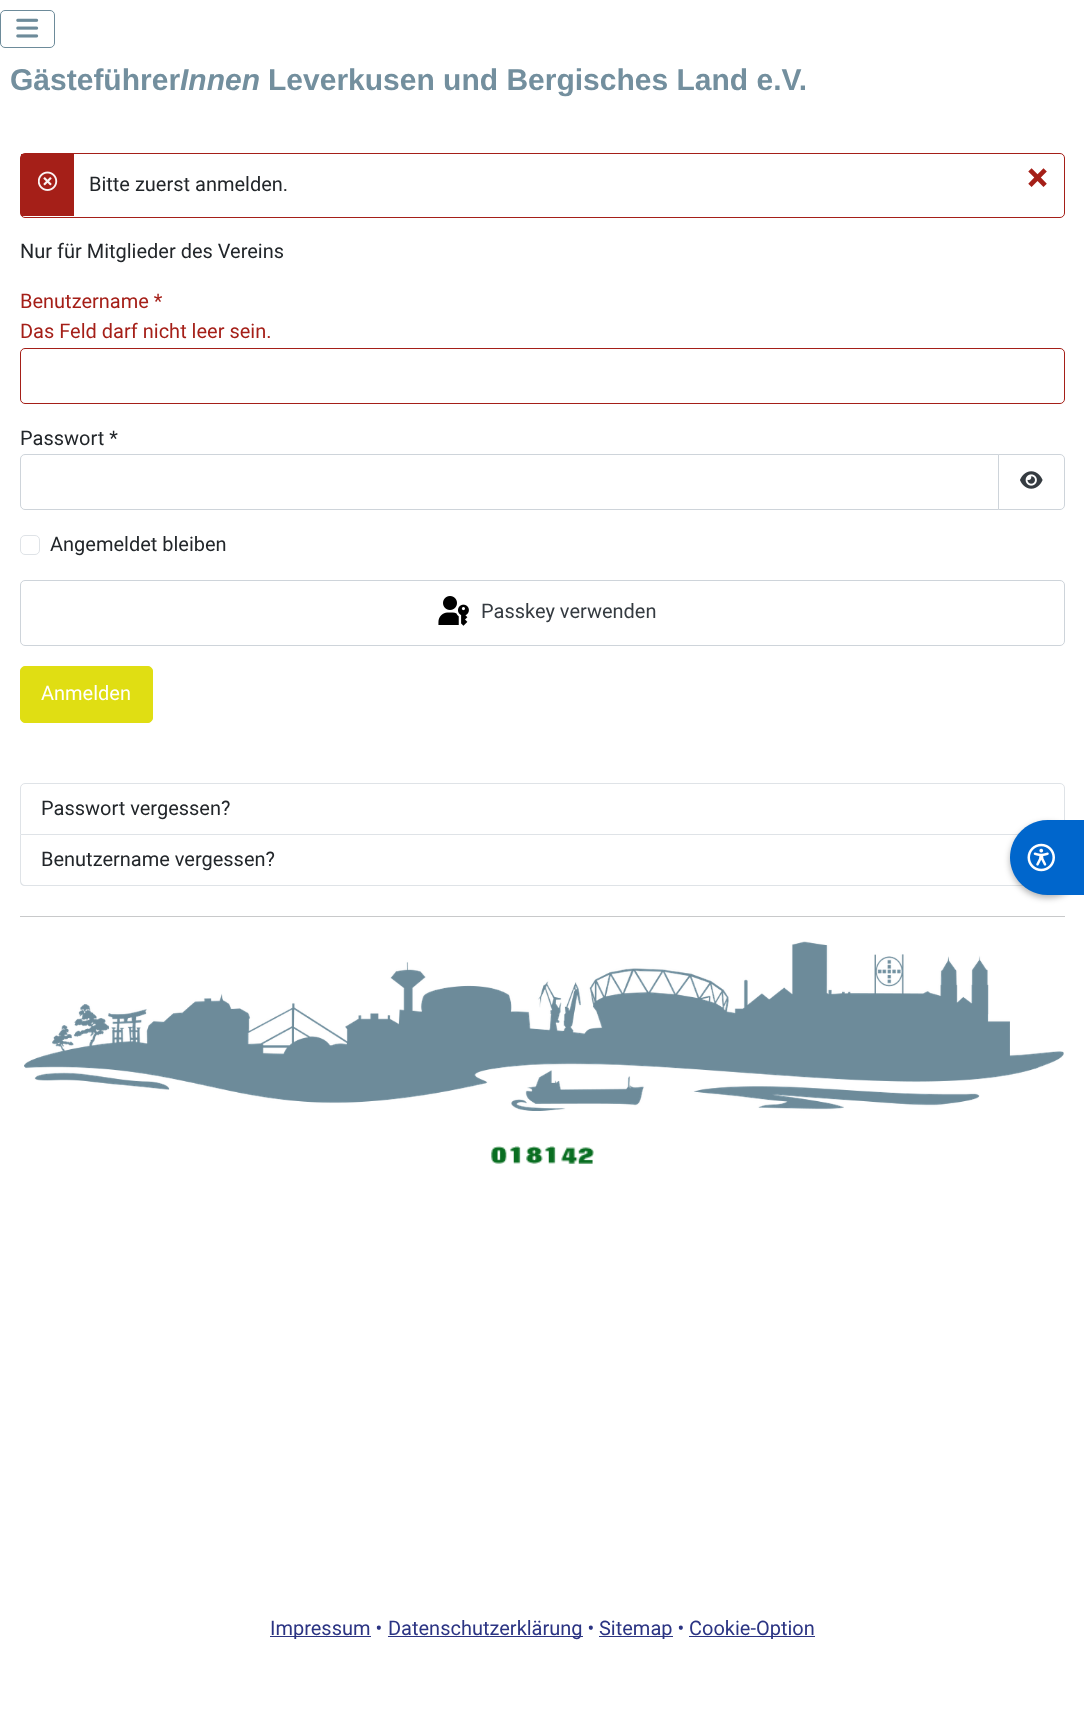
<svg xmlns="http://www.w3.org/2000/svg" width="1084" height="1713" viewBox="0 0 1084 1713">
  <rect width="100%" height="100%" fill="rgb(255,255,255)"/>
  <rect x="0.5" y="10.5" width="54" height="37" rx="4.5" fill="none" stroke="rgb(109,139,154)"/>
  <image x="16" y="18" width="23" height="20" href="pic1.png"/>
  <text x="10" y="90" font-family="Liberation Sans" font-size="30" font-weight="bold" fill="rgb(115,143,158)">Gästeführer</text>
  <text x="180" y="90" font-family="Liberation Sans" font-size="30" font-weight="bold" font-style="italic" fill="rgb(115,143,158)">Innen</text>
  <text x="268" y="90" font-family="Liberation Sans" font-size="30" font-weight="bold" fill="rgb(115,143,158)">Leverkusen und Bergisches Land e.V.</text>
  <rect x="20.5" y="153.5" width="1044" height="64" rx="4.5" fill="none" stroke="rgb(165,31,24)"/>
  <rect x="21" y="154" width="53" height="62" fill="rgb(165,31,24)"/>
  <image x="38" y="171" width="20" height="20" href="pic2.png"/>
  <text x="89" y="191" font-family="Roboto" font-size="20" fill="rgb(34,38,42)">Bitte zuerst anmelden.</text>
  <text x="1027" y="191" font-family="Roboto" font-size="40" font-weight="bold" fill="rgb(165,31,24)">×</text>
  <text x="20" y="258" font-family="Roboto" font-size="20" fill="rgb(34,38,42)">Nur für Mitglieder des Vereins</text>
  <g font-family="Roboto" font-size="20" fill="rgb(165,31,24)">
    <text>
      <tspan x="20" y="308">Benutzername *</tspan>
      <tspan x="20" y="338">Das Feld darf nicht leer sein.</tspan>
    </text>
  </g>
  <rect x="20.5" y="348.5" width="1044" height="55" rx="4.5" fill="none" stroke="rgb(165,31,24)"/>
  <text x="20" y="445" font-family="Roboto" font-size="20" fill="rgb(34,38,42)">Passwort *</text>
  <path d="M25 454.5H998.5V509.5H25C22.5 509.5 20.5 507.5 20.5 505V459C20.5 456.5 22.5 454.5 25 454.5Z" fill="none" stroke="rgb(206,212,218)"/>
  <path d="M998.5 454.5H1060C1062.5 454.5 1064.5 456.5 1064.5 459V505C1064.5 507.5 1062.5 509.5 1060 509.5H998.5Z" fill="rgb(255,255,255)" stroke="rgb(206,212,218)"/>
  <image x="1020" y="471" width="23" height="18" href="pic3.png"/>
  <rect x="20.5" y="535.5" width="19" height="19" rx="4.5" fill="none" stroke="rgb(223,227,231)"/>
  <text x="50" y="551" font-family="Roboto" font-size="20" fill="rgb(34,38,42)">Angemeldet bleiben</text>
  <rect x="20.5" y="580.5" width="1044" height="65" rx="4.5" fill="none" stroke="rgb(206,212,218)"/>
  <image x="438" y="596" width="31" height="30" href="pic4.png"/>
  <text x="481" y="618" font-family="Roboto" font-size="20" fill="rgb(53,59,65)">Passkey verwenden</text>
  <rect x="20.5" y="666.5" width="132" height="56" rx="4.5" fill="rgb(224,222,19)" stroke="rgb(224,222,19)"/>
  <text x="41" y="700" font-family="Roboto" font-size="20" fill="rgb(255,255,255)">Anmelden</text>
  <path d="M25 783.5H1060C1062.5 783.5 1064.5 785.5 1064.5 788V834.5H20.5V788C20.5 785.5 22.5 783.5 25 783.5Z" fill="none" stroke="rgb(223,227,231)"/>
  <text x="41" y="815" font-family="Roboto" font-size="20" fill="rgb(34,38,42)">Passwort vergessen?</text>
  <path d="M20 835H1065V881C1065 884 1063 886 1060 886H25C22 886 20 884 20 881ZM21 835H1064V881C1064 883 1062 885 1060 885H25C23 885 21 883 21 881Z" fill="rgb(223,227,231)" fill-rule="evenodd"/>
  <text x="41" y="866" font-family="Roboto" font-size="20" fill="rgb(34,38,42)">Benutzername vergessen?</text>
  <rect x="20" y="916" width="1045" height="1" fill="rgb(200,201,202)"/>
  <image x="24" y="941" width="1040" height="170" href="pic5.png"/>
  <image x="491" y="1146" width="16" height="18" href="pic6.png"/>
  <image x="509" y="1146" width="12" height="18" href="pic7.png"/>
  <image x="526" y="1146" width="17" height="18" href="pic8.png"/>
  <image x="544" y="1146" width="12" height="18" href="pic9.png"/>
  <image x="561" y="1147" width="17" height="17" href="pic10.png"/>
  <image x="578" y="1147" width="16" height="17" href="pic11.png"/>
  <rect x="1010" y="823" width="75" height="75" rx="37.5" fill="rgba(0,0,0,0.3)" filter="blur(3px)"/>
  <path d="M1047.5 820H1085V895H1047.5C1027 895 1010 878 1010 857.5C1010 837 1027 820 1047.5 820Z" fill="rgb(0,102,204)"/>
  <image x="1027" y="843" width="28" height="29" href="pic12.png"/>
  <rect x="270" y="1636" width="101" height="1" fill="rgb(43,52,131)"/>
  <text x="270" y="1635" font-family="Roboto" font-size="20" fill="rgb(43,52,131)">Impressum •</text>
  <rect x="388" y="1636" width="195" height="1" fill="rgb(43,52,131)"/>
  <text x="388" y="1635" font-family="Roboto" font-size="20" fill="rgb(43,52,131)">Datenschutzerklärung •</text>
  <rect x="599" y="1636" width="74" height="1" fill="rgb(43,52,131)"/>
  <text x="599" y="1635" font-family="Roboto" font-size="20" fill="rgb(43,52,131)">Sitemap •</text>
  <rect x="689" y="1636" width="126" height="1" fill="rgb(43,52,131)"/>
  <text x="689" y="1635" font-family="Roboto" font-size="20" fill="rgb(43,52,131)">Cookie-Option</text>
</svg>
